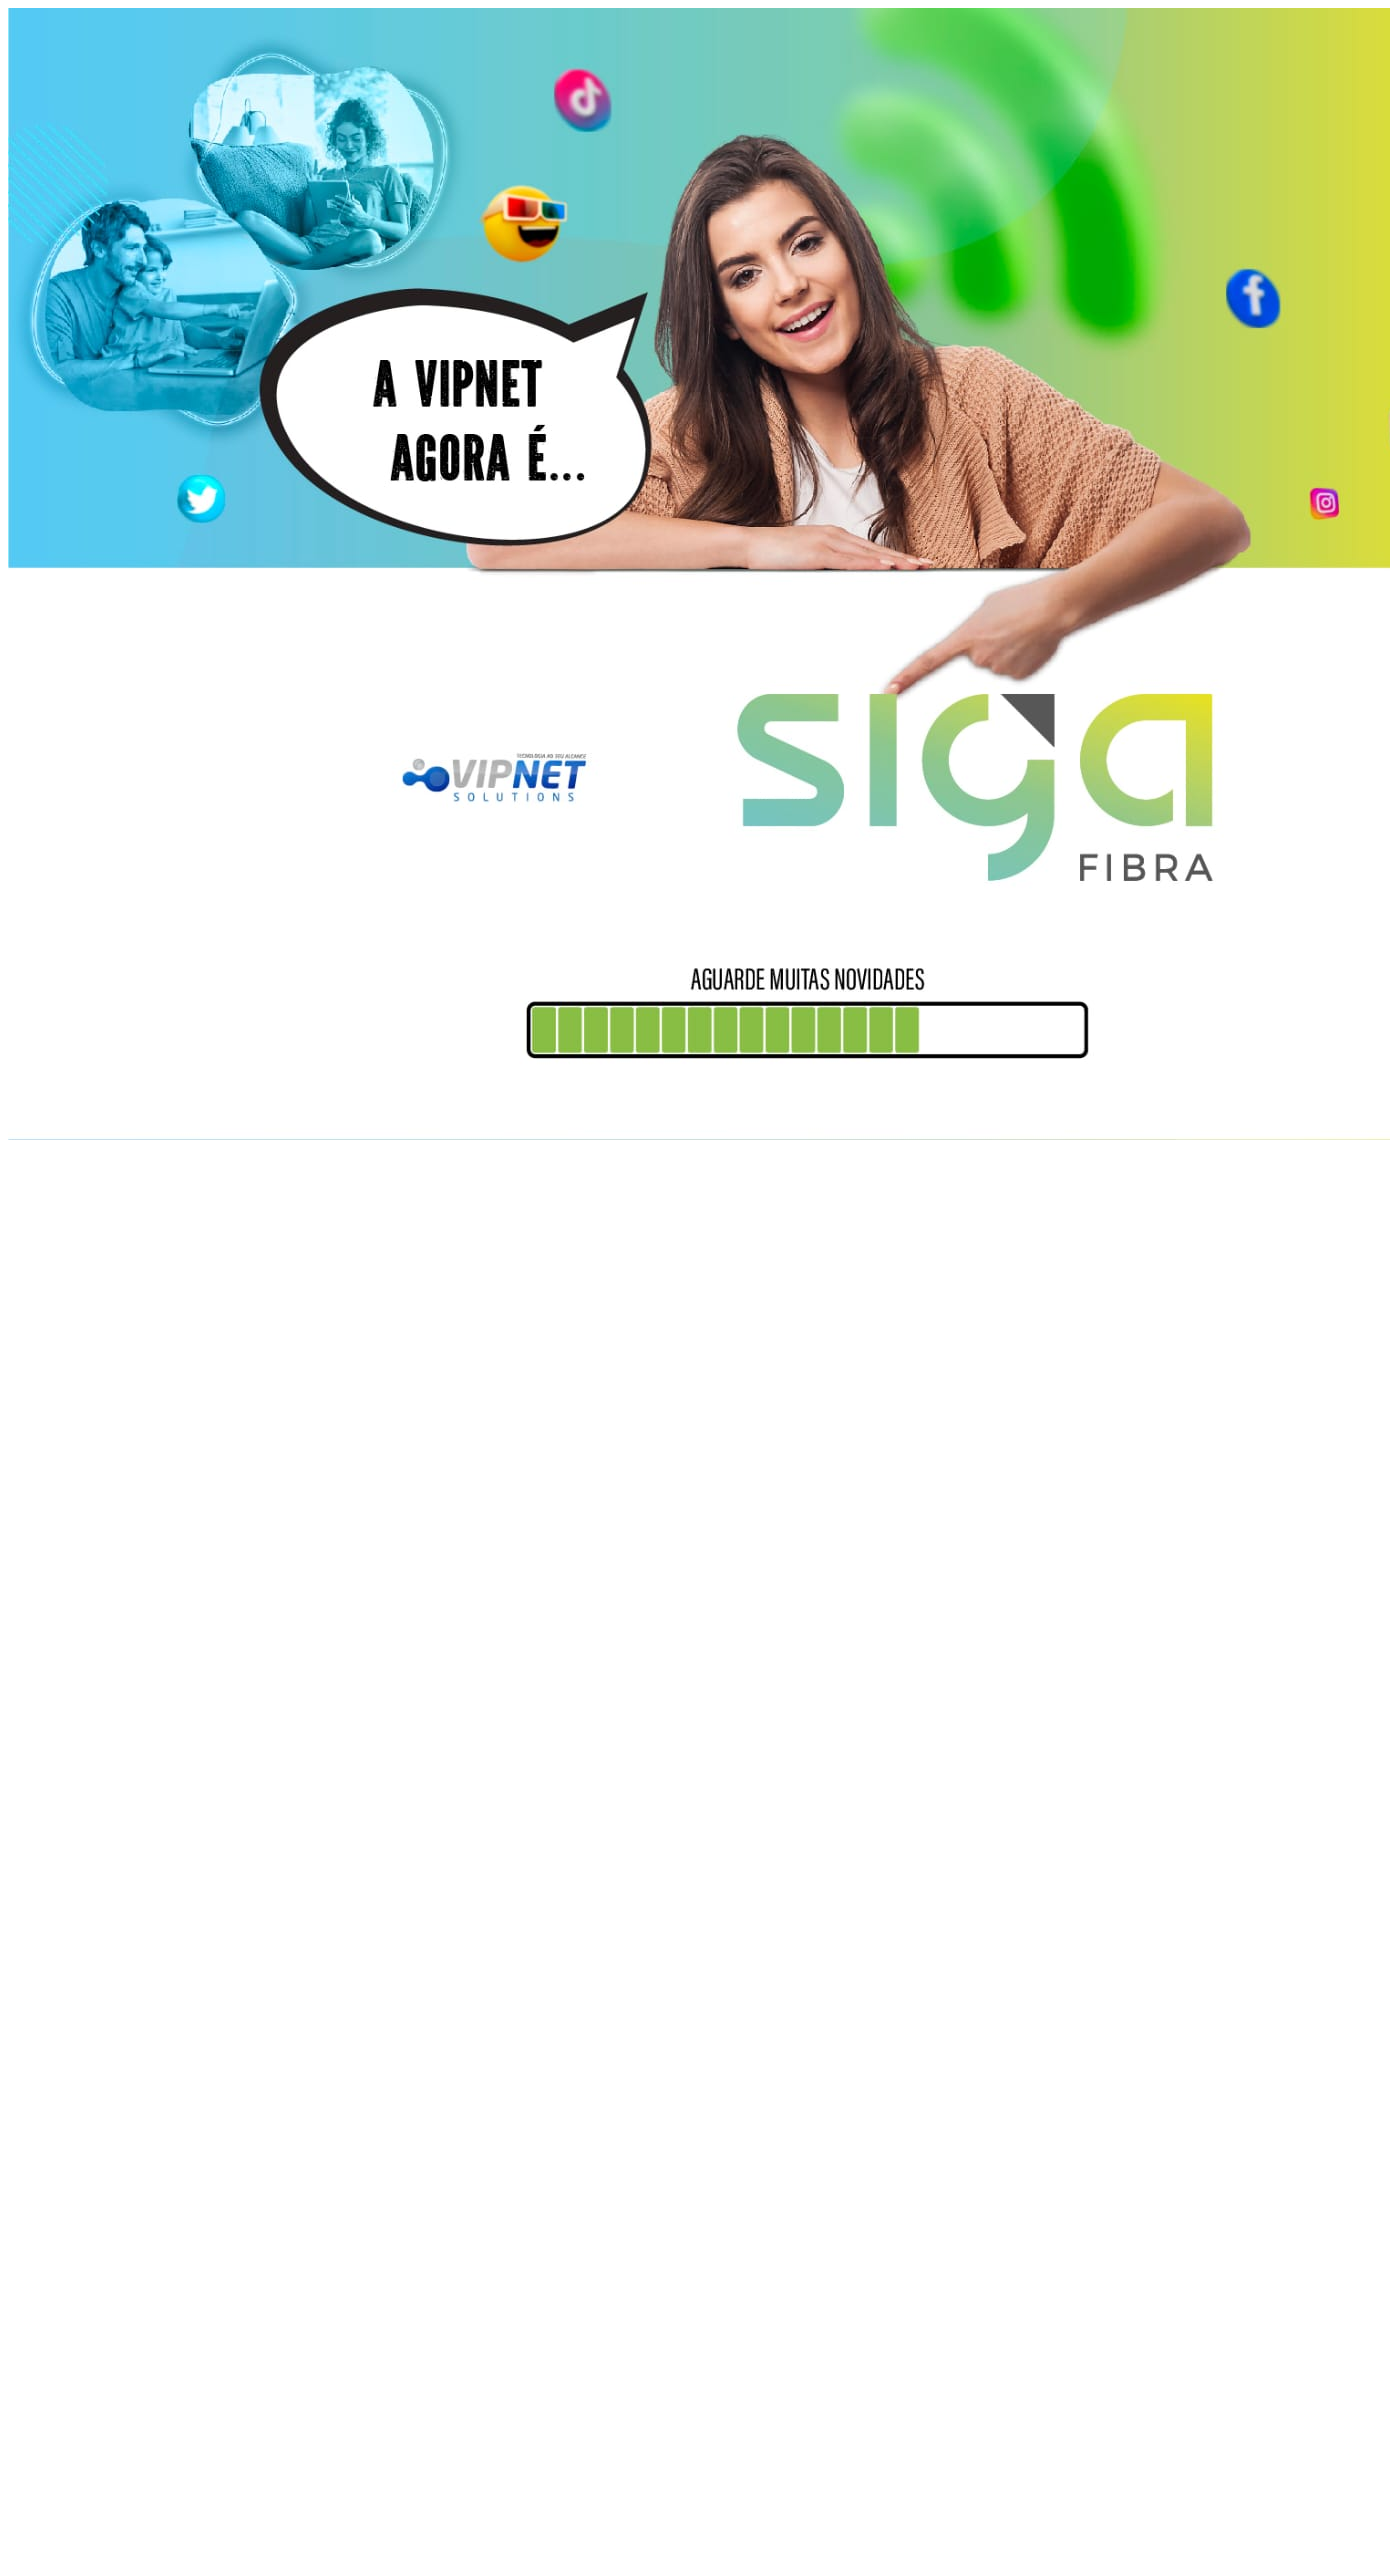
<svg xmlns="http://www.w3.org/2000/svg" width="1390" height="2560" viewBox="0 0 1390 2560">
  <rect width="100%" height="100%" fill="rgb(255,255,255)"/>
  <image x="8" y="8" width="1382" height="1132" href="pic1.png"/>
</svg>
